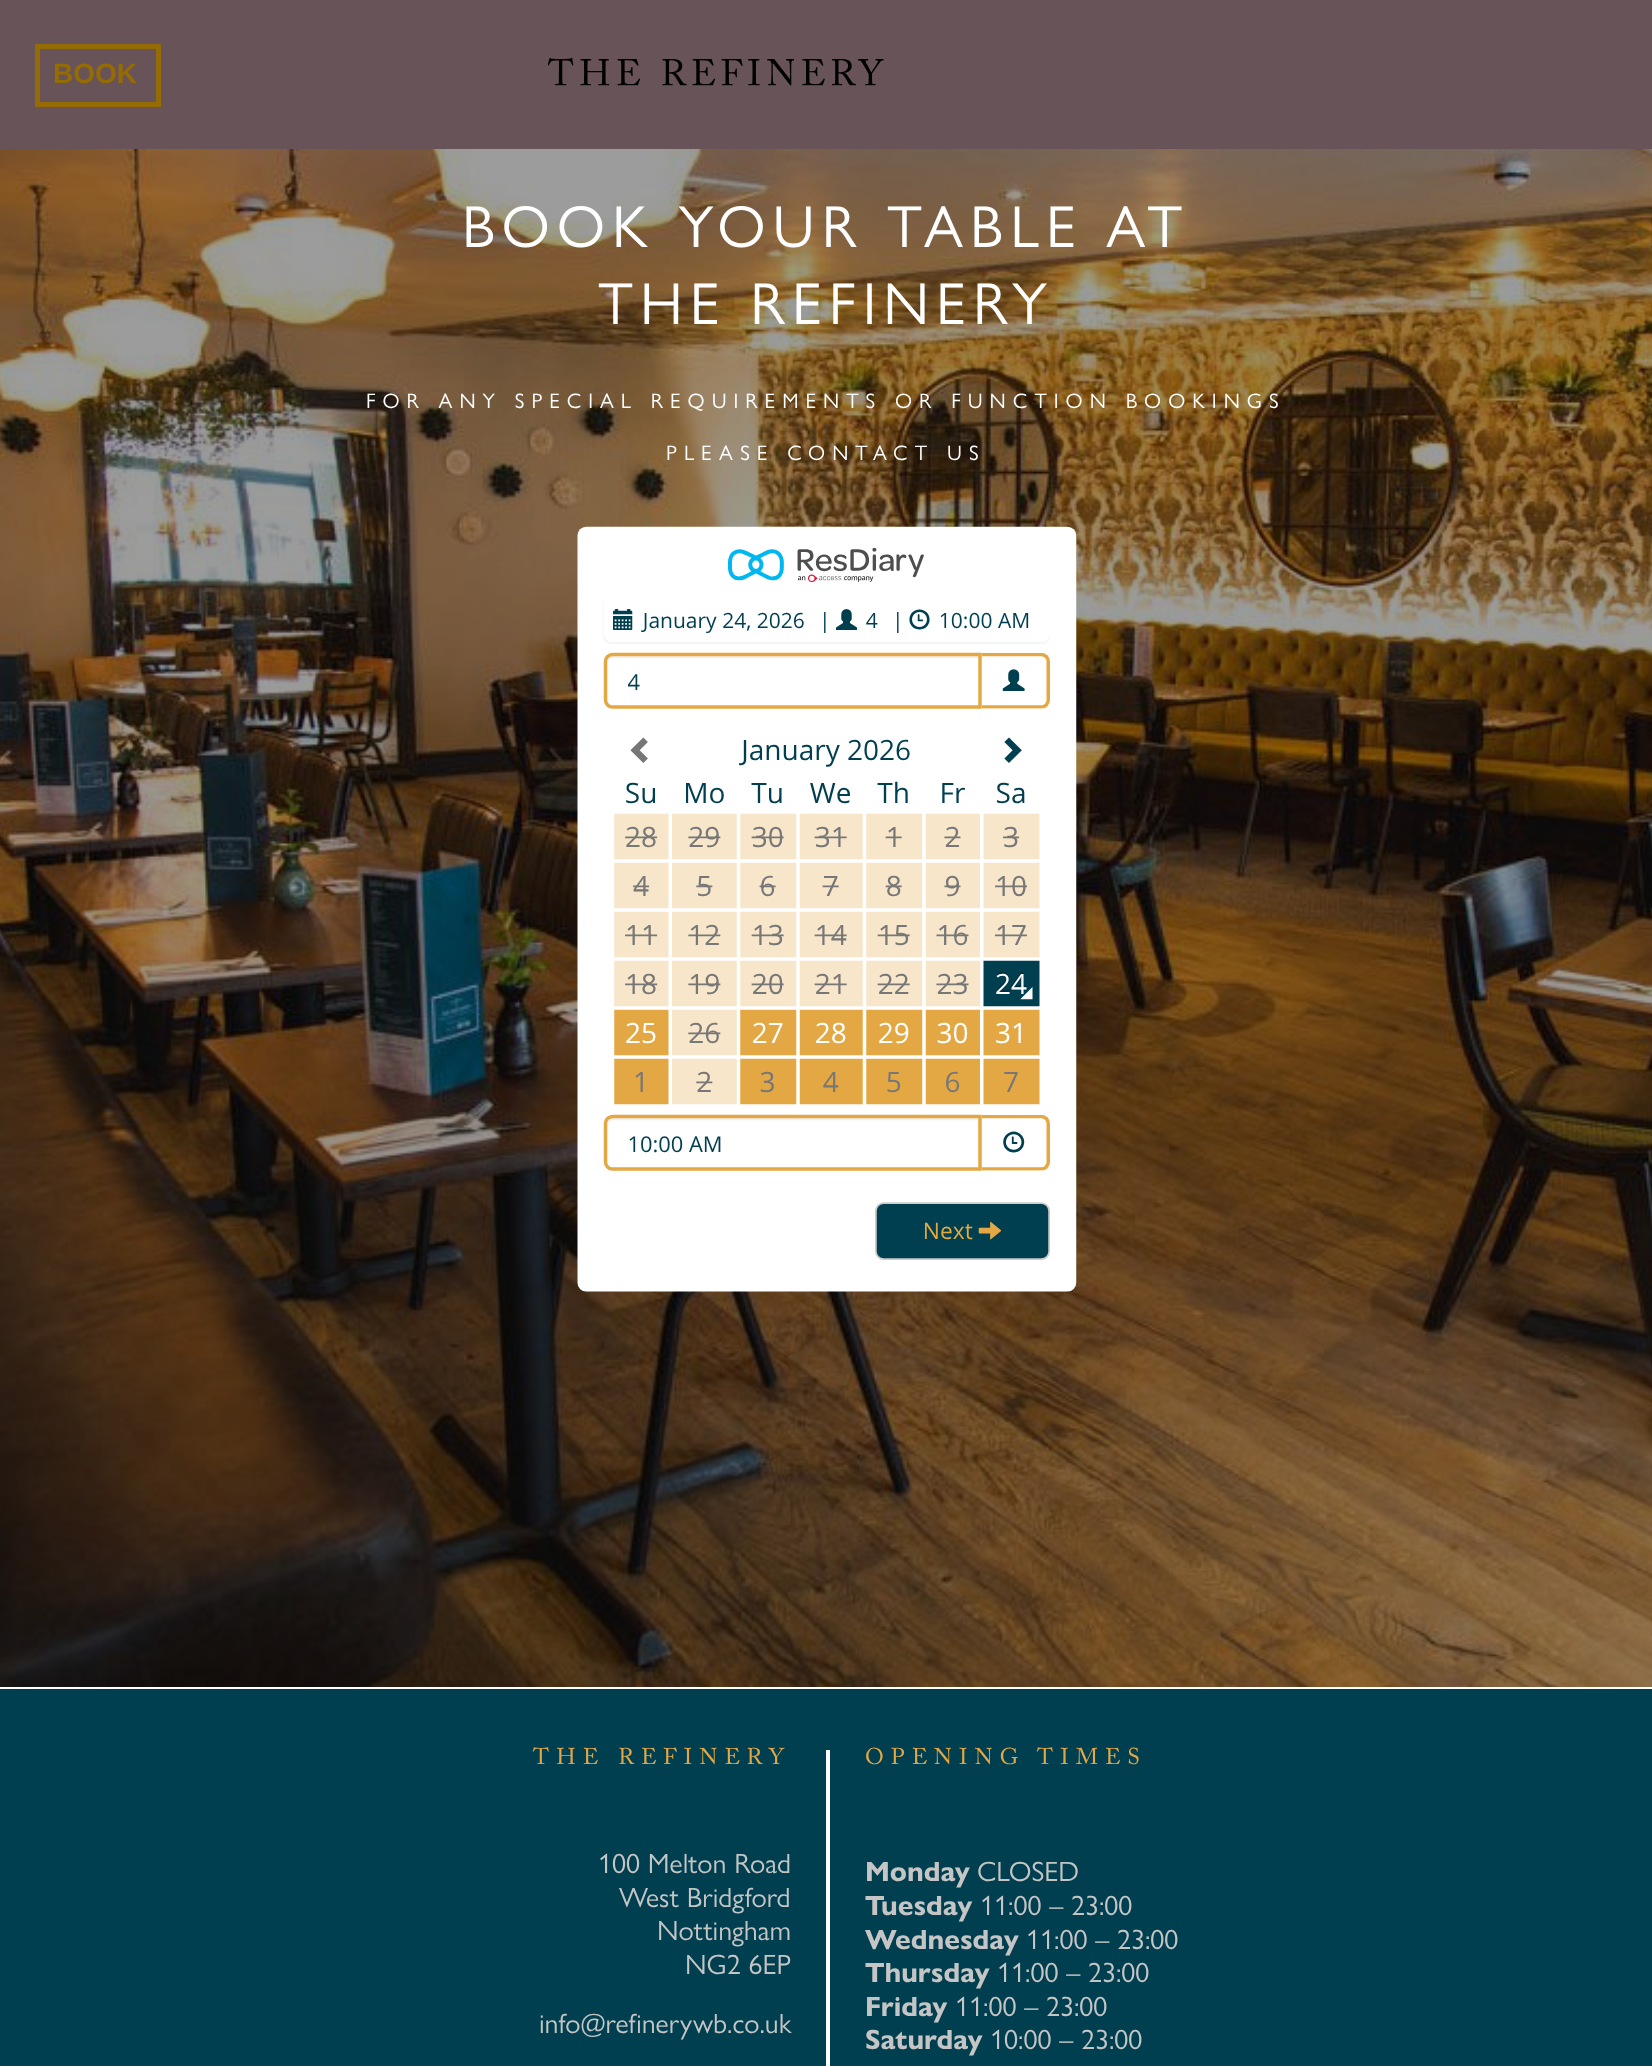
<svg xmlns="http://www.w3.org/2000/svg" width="1652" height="2066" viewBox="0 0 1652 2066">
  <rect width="100%" height="100%" fill="rgb(255,255,255)"/>
  <rect x="0" y="0" width="1652" height="149" fill="rgb(104,83,88)"/>
  <rect x="37.5" y="46.5" width="121" height="58" fill="none" stroke="rgb(149,107,5)" stroke-width="5"/>
  <text x="53" y="83" font-family="Liberation Sans" font-size="28" font-weight="bold" fill="rgb(149,107,5)">BOOK</text>
  <image x="548" y="58" width="336" height="28" href="pic1.png"/>
  <image x="0" y="149" width="1652" height="1538" href="pic2.png"/>
  <g font-family="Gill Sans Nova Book" font-size="59.5" letter-spacing="7" fill="rgb(255,255,255)">
    <text x="462" y="247">BOOK YOUR TABLE AT</text>
    <text x="598" y="324">THE REFINERY</text>
  </g>
  <g font-family="Gill Sans Nova Book" font-size="21" letter-spacing="7" fill="rgb(255,255,255)">
    <text x="366" y="408">FOR ANY SPECIAL REQUIREMENTS OR FUNCTION BOOKINGS</text>
    <text x="666" y="460">PLEASE CONTACT US</text>
  </g>
  <image x="577" y="526" width="500" height="766" href="pic3.png"/>
  <rect x="0" y="1689" width="1652" height="377" fill="rgb(0,63,80)"/>
  <text x="533" y="1764" font-family="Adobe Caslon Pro" font-size="22.75" letter-spacing="7" fill="rgb(227,167,69)">THE REFINERY</text>
  <g font-family="Gill Sans Nova Book" font-size="28" fill="rgb(197,197,197)">
    <text x="598" y="1873">100 Melton Road</text>
    <text x="619" y="1907">West Bridgford</text>
    <text x="657" y="1940">Nottingham</text>
    <text x="685" y="1974">NG2 6EP</text>
    <text x="539" y="2033">info@refinerywb.co.uk</text>
  </g>
  <rect x="826" y="1750" width="4" height="316" fill="rgb(255,255,255)"/>
  <text x="865" y="1764" font-family="Adobe Caslon Pro" font-size="22.75" letter-spacing="7" fill="rgb(227,167,69)">OPENING TIMES</text>
  <text x="865" y="1881" font-family="Gill Sans Nova Book" font-size="28" font-weight="bold" fill="rgb(197,197,197)">Monday</text>
  <text x="977" y="1881" font-family="Gill Sans Nova Book" font-size="28" fill="rgb(197,197,197)">CLOSED</text>
  <text x="865" y="1915" font-family="Gill Sans Nova Book" font-size="28" font-weight="bold" fill="rgb(197,197,197)">Tuesday</text>
  <text x="980" y="1915" font-family="Gill Sans Nova Book" font-size="28" fill="rgb(197,197,197)">11:00 – 23:00</text>
  <text x="865" y="1949" font-family="Gill Sans Nova Book" font-size="28" font-weight="bold" fill="rgb(197,197,197)">Wednesday</text>
  <text x="1026" y="1949" font-family="Gill Sans Nova Book" font-size="28" fill="rgb(197,197,197)">11:00 – 23:00</text>
  <text x="865" y="1982" font-family="Gill Sans Nova Book" font-size="28" font-weight="bold" fill="rgb(197,197,197)">Thursday</text>
  <text x="997" y="1982" font-family="Gill Sans Nova Book" font-size="28" fill="rgb(197,197,197)">11:00 – 23:00</text>
  <text x="865" y="2016" font-family="Gill Sans Nova Book" font-size="28" font-weight="bold" fill="rgb(197,197,197)">Friday</text>
  <text x="955" y="2016" font-family="Gill Sans Nova Book" font-size="28" fill="rgb(197,197,197)">11:00 – 23:00</text>
  <text x="865" y="2049" font-family="Gill Sans Nova Book" font-size="28" font-weight="bold" fill="rgb(197,197,197)">Saturday</text>
  <text x="990" y="2049" font-family="Gill Sans Nova Book" font-size="28" fill="rgb(197,197,197)">10:00 – 23:00</text>
</svg>
